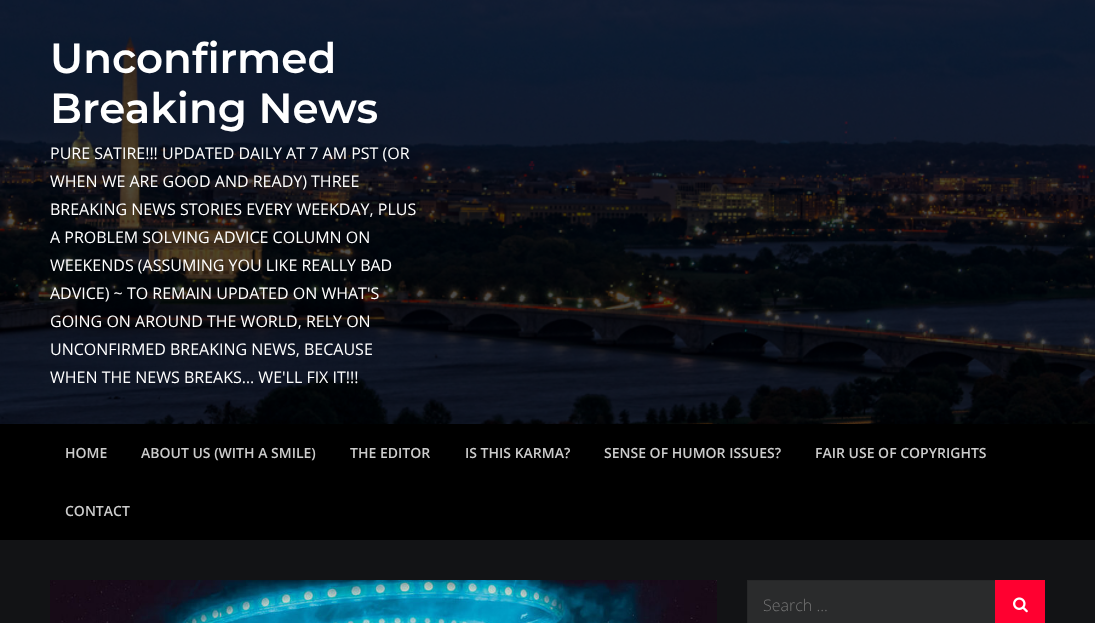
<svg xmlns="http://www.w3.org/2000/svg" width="1095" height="623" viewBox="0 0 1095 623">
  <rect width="100%" height="100%" fill="rgb(18,19,21)"/>
  <image x="0" y="0" width="1095" height="424" href="pic1.png"/>
  <g font-family="Montserrat" font-size="42" font-weight="600" fill="rgb(255,255,255)">
    <text>
      <tspan x="50" y="73">Unconfirmed</tspan>
      <tspan x="50" y="123">Breaking News</tspan>
    </text>
  </g>
  <g font-family="Open Sans" font-size="16" fill="rgb(255,255,255)">
    <text>
      <tspan x="50" y="159">PURE SATIRE!!! UPDATED DAILY AT 7 AM PST (OR</tspan>
      <tspan x="50" y="187">WHEN WE ARE GOOD AND READY) THREE</tspan>
      <tspan x="50" y="215">BREAKING NEWS STORIES EVERY WEEKDAY, PLUS</tspan>
      <tspan x="50" y="243">A PROBLEM SOLVING ADVICE COLUMN ON</tspan>
      <tspan x="50" y="271">WEEKENDS (ASSUMING YOU LIKE REALLY BAD</tspan>
      <tspan x="50" y="299">ADVICE) ~ TO REMAIN UPDATED ON WHAT'S</tspan>
      <tspan x="50" y="327">GOING ON AROUND THE WORLD, RELY ON</tspan>
      <tspan x="50" y="355">UNCONFIRMED BREAKING NEWS, BECAUSE</tspan>
      <tspan x="50" y="383">WHEN THE NEWS BREAKS… WE'LL FIX IT!!!</tspan>
    </text>
  </g>
  <rect x="0" y="424" width="1095" height="116" fill="rgb(0,0,0)"/>
  <g font-family="Open Sans" font-size="14" font-weight="600" fill="rgb(204,204,204)">
    <text x="65" y="458">HOME</text>
    <text x="141" y="458">ABOUT US (WITH A SMILE)</text>
    <text x="350" y="458">THE EDITOR</text>
    <text x="465" y="458">IS THIS KARMA?</text>
    <text x="604" y="458">SENSE OF HUMOR ISSUES?</text>
    <text x="815" y="458">FAIR USE OF COPYRIGHTS</text>
    <text x="65" y="516">CONTACT</text>
  </g>
  <image x="50" y="580" width="667" height="43" href="pic2.png"/>
  <rect x="748" y="581" width="247" height="42" fill="rgb(42,43,44)"/>
  <rect x="747.5" y="580.5" width="297" height="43" fill="none" stroke="rgb(38,39,40)"/>
  <text x="763" y="611" font-family="Open Sans" font-size="16" font-weight="300" fill="rgb(117,117,117)">Search ...</text>
  <rect x="995" y="580" width="50" height="43" fill="rgb(255,0,48)"/>
  <image x="1013" y="597" width="15" height="16" href="pic3.png"/>
</svg>
